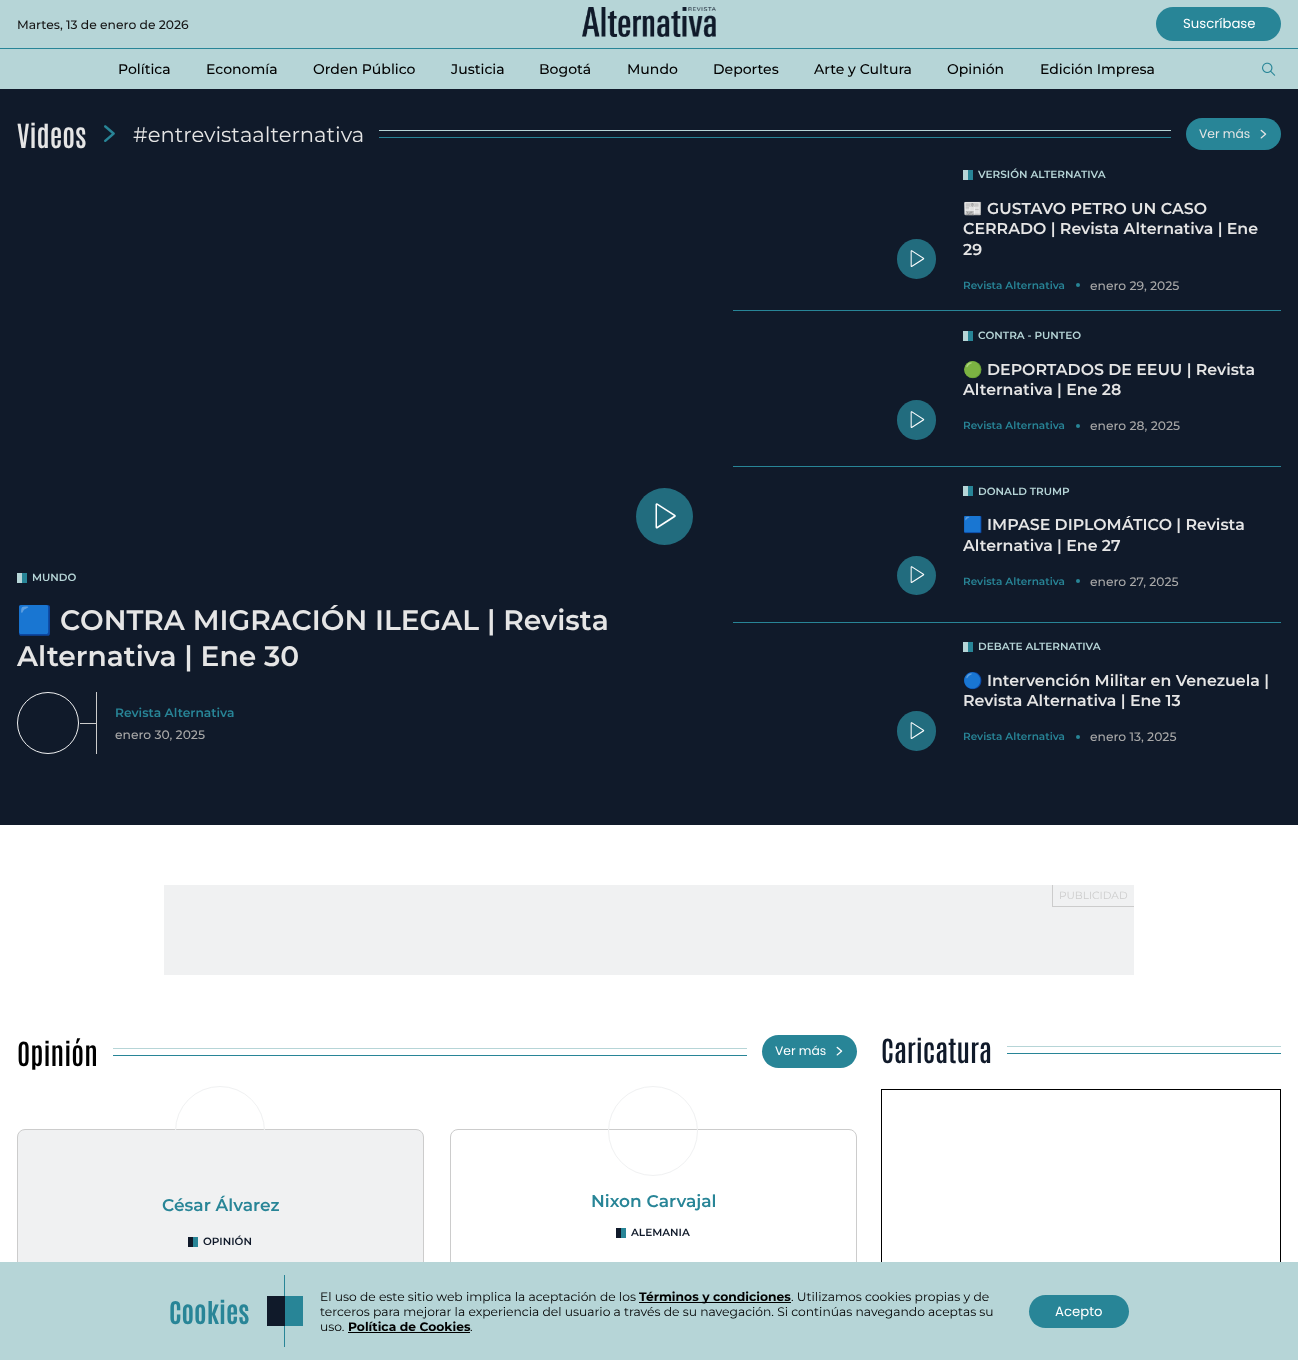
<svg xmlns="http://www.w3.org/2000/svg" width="1298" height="1360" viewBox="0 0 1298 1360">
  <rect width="100%" height="100%" fill="rgb(255,255,255)"/>
  <rect x="0" y="0" width="1298" height="89" fill="rgb(182,213,215)"/>
  <text x="17" y="29" font-family="'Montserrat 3'" font-size="12.3" font-weight="100" fill="rgb(21,21,21)">Martes, 13 de enero de 2026</text>
  <image x="582" y="7" width="134" height="30" href="pic1.png"/>
  <rect x="1156" y="7" width="125" height="34" rx="17" fill="rgb(40,133,151)"/>
  <text x="1183" y="28" font-family="Poppins" font-size="13.25" fill="rgb(255,255,255)">Suscríbase</text>
  <rect x="0" y="48" width="1298" height="1" fill="rgb(40,133,151)"/>
  <g font-family="'Montserrat 3'" font-size="14" font-weight="100" fill="rgb(0,0,0)">
    <text x="118" y="74">Política</text>
    <text x="206" y="74">Economía</text>
    <text x="313" y="74">Orden Público</text>
    <text x="451" y="74">Justicia</text>
    <text x="539" y="74">Bogotá</text>
    <text x="627" y="74">Mundo</text>
    <text x="713" y="74">Deportes</text>
    <text x="814" y="74">Arte y Cultura</text>
    <text x="947" y="74">Opinión</text>
    <text x="1040" y="74">Edición Impresa</text>
  </g>
  <image x="1262" y="62" width="14" height="14" href="pic2.png"/>
  <rect x="0" y="89" width="1298" height="736" fill="rgb(16,26,42)"/>
  <text x="17" y="148" font-family="Antonio" font-size="28.1" font-weight="600" fill="rgb(229,229,229)">Videos</text>
  <image x="104" y="125" width="11" height="17" href="pic3.png"/>
  <text x="133" y="142" font-family="Montserrat" font-size="21.1" font-weight="100" fill="rgb(229,229,229)">#entrevistaalternativa</text>
  <rect x="379" y="130" width="792" height="1" fill="rgb(182,213,215)"/>
  <rect x="379" y="137" width="792" height="1" fill="rgb(40,133,151)"/>
  <rect x="1186" y="118" width="95" height="32" rx="16" fill="rgb(40,133,151)"/>
  <text x="1199" y="138" font-family="Poppins" font-size="12.3" fill="rgb(229,229,229)">Ver más</text>
  <image x="1260" y="129" width="7" height="10" href="pic4.png"/>
  <rect x="897" y="239" width="39" height="40" rx="19.5" fill="rgb(34,108,126)"/>
  <image x="910" y="250" width="15" height="17" href="pic5.png"/>
  <rect x="963" y="170" width="5" height="10" fill="rgb(182,213,215)"/>
  <rect x="968" y="170" width="5" height="10" fill="rgb(40,133,151)"/>
  <text x="978" y="178" font-family="'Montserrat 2'" font-size="10.5" font-weight="100" fill="rgb(182,213,215)">VERSIÓN ALTERNATIVA</text>
  <text x="963" y="214" font-family="Noto Color Emoji" font-size="15.8" font-weight="bold" fill="rgb(229,229,229)">📰</text>
  <g font-family="'Montserrat 2'" font-size="15.8" font-weight="100" fill="rgb(229,229,229)">
    <text x="987" y="214">GUSTAVO PETRO UN CASO</text>
    <text>
      <tspan x="963" y="234">CERRADO | Revista Alternativa | Ene</tspan>
      <tspan x="963" y="255">29</tspan>
    </text>
  </g>
  <text x="963" y="289" font-family="'Montserrat 2'" font-size="10.5" font-weight="100" fill="rgb(40,133,151)">Revista Alternativa</text>
  <circle cx="1078" cy="285" r="2" fill="rgb(40,133,151)"/>
  <text x="1090" y="290" font-family="'Montserrat 3'" font-size="12.3" font-weight="100" fill="rgb(168,168,168)">enero 29, 2025</text>
  <rect x="733" y="310" width="548" height="1" fill="rgb(40,133,151)"/>
  <rect x="897" y="400" width="39" height="40" rx="19.5" fill="rgb(34,108,126)"/>
  <image x="910" y="411" width="15" height="17" href="pic5.png"/>
  <rect x="963" y="331" width="5" height="10" fill="rgb(182,213,215)"/>
  <rect x="968" y="331" width="5" height="10" fill="rgb(40,133,151)"/>
  <text x="978" y="339" font-family="'Montserrat 2'" font-size="10.5" font-weight="100" fill="rgb(182,213,215)">CONTRA - PUNTEO</text>
  <text x="963" y="375" font-family="Noto Color Emoji" font-size="15.8" font-weight="bold" fill="rgb(229,229,229)">🟢</text>
  <g font-family="'Montserrat 2'" font-size="15.8" font-weight="100" fill="rgb(229,229,229)">
    <text x="987" y="375">DEPORTADOS DE EEUU | Revista</text>
    <text x="963" y="395">Alternativa | Ene 28</text>
  </g>
  <text x="963" y="429" font-family="'Montserrat 2'" font-size="10.5" font-weight="100" fill="rgb(40,133,151)">Revista Alternativa</text>
  <circle cx="1078" cy="426" r="2" fill="rgb(40,133,151)"/>
  <text x="1090" y="430" font-family="'Montserrat 3'" font-size="12.3" font-weight="100" fill="rgb(168,168,168)">enero 28, 2025</text>
  <rect x="733" y="466" width="548" height="1" fill="rgb(40,133,151)"/>
  <circle cx="916.5" cy="575.5" r="19.5" fill="rgb(34,108,126)"/>
  <image x="910" y="566" width="15" height="17" href="pic5.png"/>
  <rect x="963" y="486" width="5" height="10" fill="rgb(182,213,215)"/>
  <rect x="968" y="486" width="5" height="10" fill="rgb(40,133,151)"/>
  <text x="978" y="495" font-family="'Montserrat 2'" font-size="10.5" font-weight="100" fill="rgb(182,213,215)">DONALD TRUMP</text>
  <text x="963" y="530" font-family="Noto Color Emoji" font-size="15.8" font-weight="bold" fill="rgb(229,229,229)">🟦</text>
  <g font-family="'Montserrat 2'" font-size="15.8" font-weight="100" fill="rgb(229,229,229)">
    <text x="987" y="530">IMPASE DIPLOMÁTICO | Revista</text>
    <text x="963" y="551">Alternativa | Ene 27</text>
  </g>
  <text x="963" y="585" font-family="'Montserrat 2'" font-size="10.5" font-weight="100" fill="rgb(40,133,151)">Revista Alternativa</text>
  <circle cx="1078" cy="581" r="2" fill="rgb(40,133,151)"/>
  <text x="1090" y="586" font-family="'Montserrat 3'" font-size="12.3" font-weight="100" fill="rgb(168,168,168)">enero 27, 2025</text>
  <circle cx="664.5" cy="516.5" r="28.5" fill="rgb(34,108,126)"/>
  <image x="655" y="503" width="21" height="26" href="pic6.png"/>
  <rect x="17" y="573" width="5" height="10" fill="rgb(182,213,215)"/>
  <rect x="22" y="573" width="5" height="10" fill="rgb(40,133,151)"/>
  <text x="32" y="581" font-family="'Montserrat 2'" font-size="10.5" font-weight="100" fill="rgb(182,213,215)">MUNDO</text>
  <text x="17" y="630" font-family="Noto Color Emoji" font-size="28.1" font-weight="bold" fill="rgb(229,229,229)">🟦</text>
  <g font-family="'Montserrat 2'" font-size="28.1" font-weight="100" fill="rgb(229,229,229)">
    <text x="60" y="630">CONTRA MIGRACIÓN ILEGAL | Revista</text>
    <text x="17" y="666">Alternativa | Ene 30</text>
  </g>
  <circle cx="48" cy="723" r="30.5" fill="none" stroke="rgb(240,241,242)"/>
  <rect x="96" y="692" width="1" height="62" fill="rgb(204,204,204)"/>
  <rect x="80" y="723" width="17" height="1" fill="rgb(204,204,204)"/>
  <text x="115" y="717" font-family="'Montserrat 2'" font-size="12.3" font-weight="100" fill="rgb(40,133,151)">Revista Alternativa</text>
  <text x="115" y="739" font-family="'Montserrat 3'" font-size="12.3" font-weight="100" fill="rgb(168,168,168)">enero 30, 2025</text>
  <rect x="733" y="622" width="548" height="1" fill="rgb(40,133,151)"/>
  <rect x="897" y="711" width="39" height="40" rx="19.5" fill="rgb(34,108,126)"/>
  <image x="910" y="722" width="15" height="17" href="pic5.png"/>
  <rect x="963" y="642" width="5" height="10" fill="rgb(182,213,215)"/>
  <rect x="968" y="642" width="5" height="10" fill="rgb(40,133,151)"/>
  <text x="978" y="650" font-family="'Montserrat 2'" font-size="10.5" font-weight="100" fill="rgb(182,213,215)">DEBATE ALTERNATIVA</text>
  <text x="963" y="686" font-family="Noto Color Emoji" font-size="15.8" font-weight="bold" fill="rgb(229,229,229)">🔵</text>
  <g font-family="'Montserrat 2'" font-size="15.8" font-weight="100" fill="rgb(229,229,229)">
    <text x="987" y="686">Intervención Militar en Venezuela |</text>
    <text x="963" y="706">Revista Alternativa | Ene 13</text>
  </g>
  <text x="963" y="740" font-family="'Montserrat 2'" font-size="10.5" font-weight="100" fill="rgb(40,133,151)">Revista Alternativa</text>
  <circle cx="1078" cy="737" r="2" fill="rgb(40,133,151)"/>
  <text x="1090" y="741" font-family="'Montserrat 3'" font-size="12.3" font-weight="100" fill="rgb(168,168,168)">enero 13, 2025</text>
  <rect x="164" y="885" width="970" height="90" fill="rgb(240,241,242)"/>
  <rect x="1052" y="906" width="82" height="1" fill="rgb(204,204,204)"/>
  <rect x="1052" y="885" width="1" height="22" fill="rgb(204,204,204)"/>
  <text x="1059" y="899" font-family="Montserrat" font-size="10.5" font-weight="100" fill="rgb(204,204,204)">PUBLICIDAD</text>
  <text x="17" y="1066" font-family="Antonio" font-size="28.1" font-weight="600" fill="rgb(0,0,0)">Opinión</text>
  <rect x="113" y="1048" width="634" height="1" fill="rgb(182,213,215)"/>
  <rect x="113" y="1055" width="634" height="1" fill="rgb(40,133,151)"/>
  <rect x="762" y="1035" width="95" height="33" rx="16.5" fill="rgb(40,133,151)"/>
  <text x="775" y="1055" font-family="Poppins" font-size="12.3" fill="rgb(255,255,255)">Ver más</text>
  <image x="836" y="1046" width="7" height="10" href="pic7.png"/>
  <rect x="17.5" y="1129.5" width="406" height="214" rx="7.5" fill="rgb(240,241,242)" stroke="rgb(204,204,204)"/>
  <circle cx="220" cy="1131" r="44.5" fill="none" stroke="rgb(240,241,242)"/>
  <text x="162" y="1211" font-family="'Montserrat 2'" font-size="17" font-weight="100" fill="rgb(40,133,151)">César Álvarez</text>
  <rect x="188" y="1237" width="5" height="10" fill="rgb(16,26,42)"/>
  <rect x="193" y="1237" width="5" height="10" fill="rgb(40,133,151)"/>
  <text x="203" y="1245" font-family="'Montserrat 2'" font-size="10.5" font-weight="100" fill="rgb(16,26,42)">OPINIÓN</text>
  <rect x="450.5" y="1129.5" width="406" height="214" rx="7.5" fill="none" stroke="rgb(204,204,204)"/>
  <circle cx="653" cy="1131" r="44.5" fill="none" stroke="rgb(240,241,242)"/>
  <text x="591" y="1207" font-family="'Montserrat 2'" font-size="17" font-weight="100" fill="rgb(40,133,151)">Nixon Carvajal</text>
  <rect x="616" y="1228" width="5" height="10" fill="rgb(16,26,42)"/>
  <rect x="621" y="1228" width="5" height="10" fill="rgb(40,133,151)"/>
  <text x="631" y="1236" font-family="'Montserrat 2'" font-size="10.5" font-weight="100" fill="rgb(16,26,42)">ALEMANIA</text>
  <text x="881" y="1063" font-family="Antonio" font-size="28.1" font-weight="600" fill="rgb(16,26,42)">Caricatura</text>
  <rect x="1007" y="1046" width="274" height="1" fill="rgb(182,213,215)"/>
  <rect x="1007" y="1053" width="274" height="1" fill="rgb(40,133,151)"/>
  <rect x="881.5" y="1089.5" width="399" height="261" fill="none" stroke="rgb(0,0,0)"/>
  <rect x="0" y="1262" width="1298" height="98" fill="rgb(182,213,215)"/>
  <text x="169" y="1324" font-family="Antonio" font-size="26.5" font-weight="bold" fill="rgb(40,133,151)">Cookies</text>
  <rect x="284" y="1275" width="1" height="72" fill="rgb(40,133,151)"/>
  <rect x="267" y="1296" width="18" height="30" fill="rgb(16,26,42)"/>
  <rect x="285" y="1296" width="18" height="30" fill="rgb(40,133,151)"/>
  <text x="320" y="1301" font-family="Montserrat" font-size="12.3" font-weight="100" fill="rgb(0,0,0)">El uso de este sitio web implica la aceptación de los</text>
  <rect x="639" y="1302" width="152" height="1" fill="rgb(0,0,0)"/>
  <text x="639" y="1301" font-family="'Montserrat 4'" font-size="12.3" font-weight="100" fill="rgb(0,0,0)">Términos y condiciones</text>
  <g font-family="Montserrat" font-size="12.3" font-weight="100" fill="rgb(0,0,0)">
    <text x="791" y="1301">. Utilizamos cookies propias y de</text>
    <text>
      <tspan x="320" y="1316">terceros para mejorar la experiencia del usuario a través de su navegación. Si continúas navegando aceptas su</tspan>
      <tspan x="320" y="1331">uso.</tspan>
    </text>
  </g>
  <text x="348" y="1331" font-family="'Montserrat 4'" font-size="12.3" font-weight="100" fill="rgb(0,0,0)">Política de Cookies</text>
  <rect x="348" y="1332" width="122" height="1" fill="rgb(0,0,0)"/>
  <text x="470" y="1331" font-family="Montserrat" font-size="12.3" font-weight="100" fill="rgb(0,0,0)">.</text>
  <rect x="1029" y="1295" width="100" height="33" rx="16.5" fill="rgb(40,133,151)"/>
  <text x="1055" y="1316" font-family="Poppins" font-size="13.25" fill="rgb(255,255,255)">Acepto</text>
</svg>
